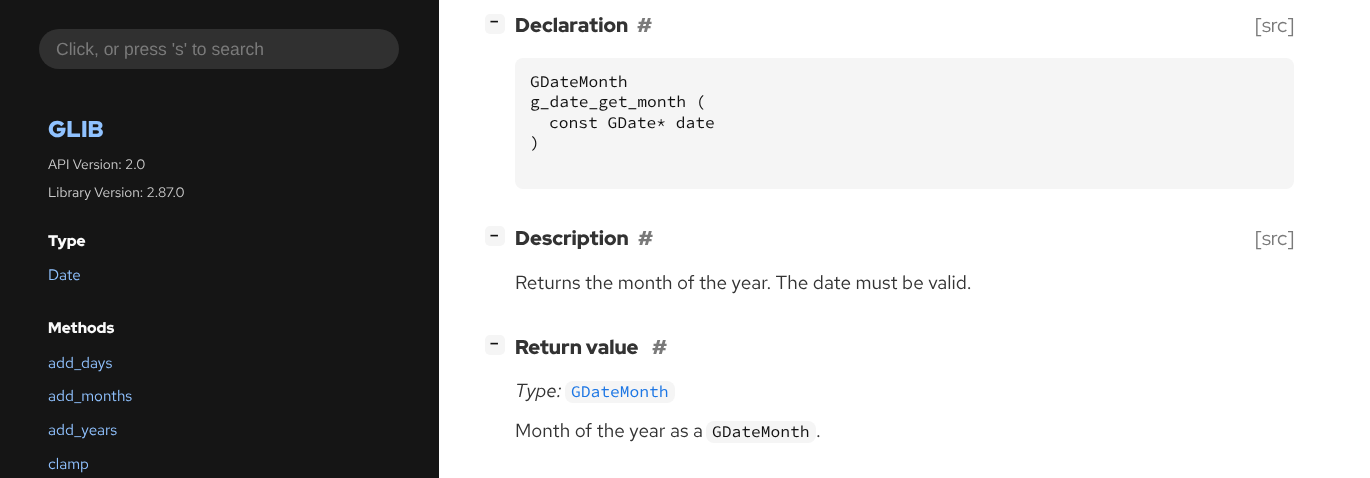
<svg xmlns="http://www.w3.org/2000/svg" width="1370" height="478" viewBox="0 0 1370 478">
  <rect width="100%" height="100%" fill="rgb(255,255,255)"/>
  <rect x="0" y="0" width="439" height="478" fill="rgb(21,21,21)"/>
  <rect x="39" y="29" width="360" height="40" rx="20" fill="rgb(48,48,48)"/>
  <text x="56" y="55" font-family="Liberation Sans" font-size="17.5" fill="rgb(122,122,122)">Click, or press 's' to search</text>
  <text x="48" y="137" font-family="Red Hat Display" font-size="23" font-weight="900" fill="rgb(144,194,255)">GLIB</text>
  <g font-family="Red Hat Text" font-size="13.75" fill="rgb(204,204,204)">
    <text x="48" y="169">API Version: 2.0</text>
    <text x="48" y="197">Library Version: 2.87.0</text>
  </g>
  <text x="48" y="246" font-family="Red Hat Display" font-size="15.25" font-weight="900" fill="rgb(250,250,250)">Type</text>
  <text x="48" y="280" font-family="Red Hat Text" font-size="15.25" fill="rgb(144,194,255)">Date</text>
  <text x="48" y="333" font-family="Red Hat Display" font-size="15.25" font-weight="900" fill="rgb(250,250,250)">Methods</text>
  <g font-family="Red Hat Text" font-size="15.25" fill="rgb(144,194,255)">
    <text x="48" y="368">add_days</text>
    <text x="48" y="401">add_months</text>
    <text x="48" y="435">add_years</text>
    <text x="48" y="469">clamp</text>
  </g>
  <rect x="485" y="14" width="20" height="20" rx="5" fill="rgb(245,245,245)"/>
  <text x="490" y="26" font-family="DejaVu Sans Mono" font-size="14" font-weight="bold" fill="rgb(17,17,17)">−</text>
  <text x="515" y="32" font-family="Red Hat Display" font-size="20" font-weight="900" fill="rgb(51,51,51)">Declaration</text>
  <text x="637" y="32" font-family="Red Hat Display" font-size="20" font-weight="900" fill="rgb(122,122,122)">#</text>
  <text x="1255" y="32" font-family="Red Hat Display" font-size="20" fill="rgb(122,122,122)">[src]</text>
  <rect x="515" y="58" width="779" height="131" rx="8" fill="rgb(245,245,245)"/>
  <g font-family="Source Code Pro" font-size="16.25" fill="rgb(17,17,17)">
    <text>
      <tspan x="530" y="87">GDateMonth</tspan>
      <tspan x="530" y="107">g_date_get_month (</tspan>
    </text>
    <text x="549" y="128">const GDate* date</text>
    <text x="530" y="148">)</text>
  </g>
  <rect x="485" y="226" width="20" height="20" rx="5" fill="rgb(245,245,245)"/>
  <text x="490" y="240" font-family="DejaVu Sans Mono" font-size="14" font-weight="bold" fill="rgb(17,17,17)">−</text>
  <text x="515" y="245" font-family="Red Hat Display" font-size="20" font-weight="900" fill="rgb(51,51,51)">Description</text>
  <text x="638" y="245" font-family="Red Hat Display" font-size="20" font-weight="900" fill="rgb(122,122,122)">#</text>
  <text x="1255" y="245" font-family="Red Hat Display" font-size="20" fill="rgb(122,122,122)">[src]</text>
  <text x="515" y="289" font-family="Red Hat Text" font-size="19" fill="rgb(51,51,51)">Returns the month of the year. The date must be valid.</text>
  <rect x="485" y="335" width="20" height="20" rx="5" fill="rgb(245,245,245)"/>
  <text x="490" y="348" font-family="DejaVu Sans Mono" font-size="14" font-weight="bold" fill="rgb(17,17,17)">−</text>
  <text x="515" y="354" font-family="Red Hat Display" font-size="20" font-weight="900" fill="rgb(51,51,51)">Return value</text>
  <text x="652" y="354" font-family="Red Hat Display" font-size="20" font-weight="900" fill="rgb(122,122,122)">#</text>
  <text x="515" y="397" font-family="Red Hat Text" font-size="19" font-style="italic" fill="rgb(51,51,51)">Type:</text>
  <rect x="565" y="381" width="110" height="22" rx="8" fill="rgb(245,245,245)"/>
  <text x="571" y="397" font-family="Source Code Pro" font-size="16.25" fill="rgb(28,118,228)">GDateMonth</text>
  <text x="515" y="437" font-family="Red Hat Text" font-size="19" fill="rgb(51,51,51)">Month of the year as a</text>
  <rect x="706" y="421" width="110" height="22" rx="8" fill="rgb(245,245,245)"/>
  <text x="712" y="437" font-family="Source Code Pro" font-size="16.25" fill="rgb(17,17,17)">GDateMonth</text>
  <text x="816" y="437" font-family="Red Hat Text" font-size="19" fill="rgb(51,51,51)">.</text>
</svg>
